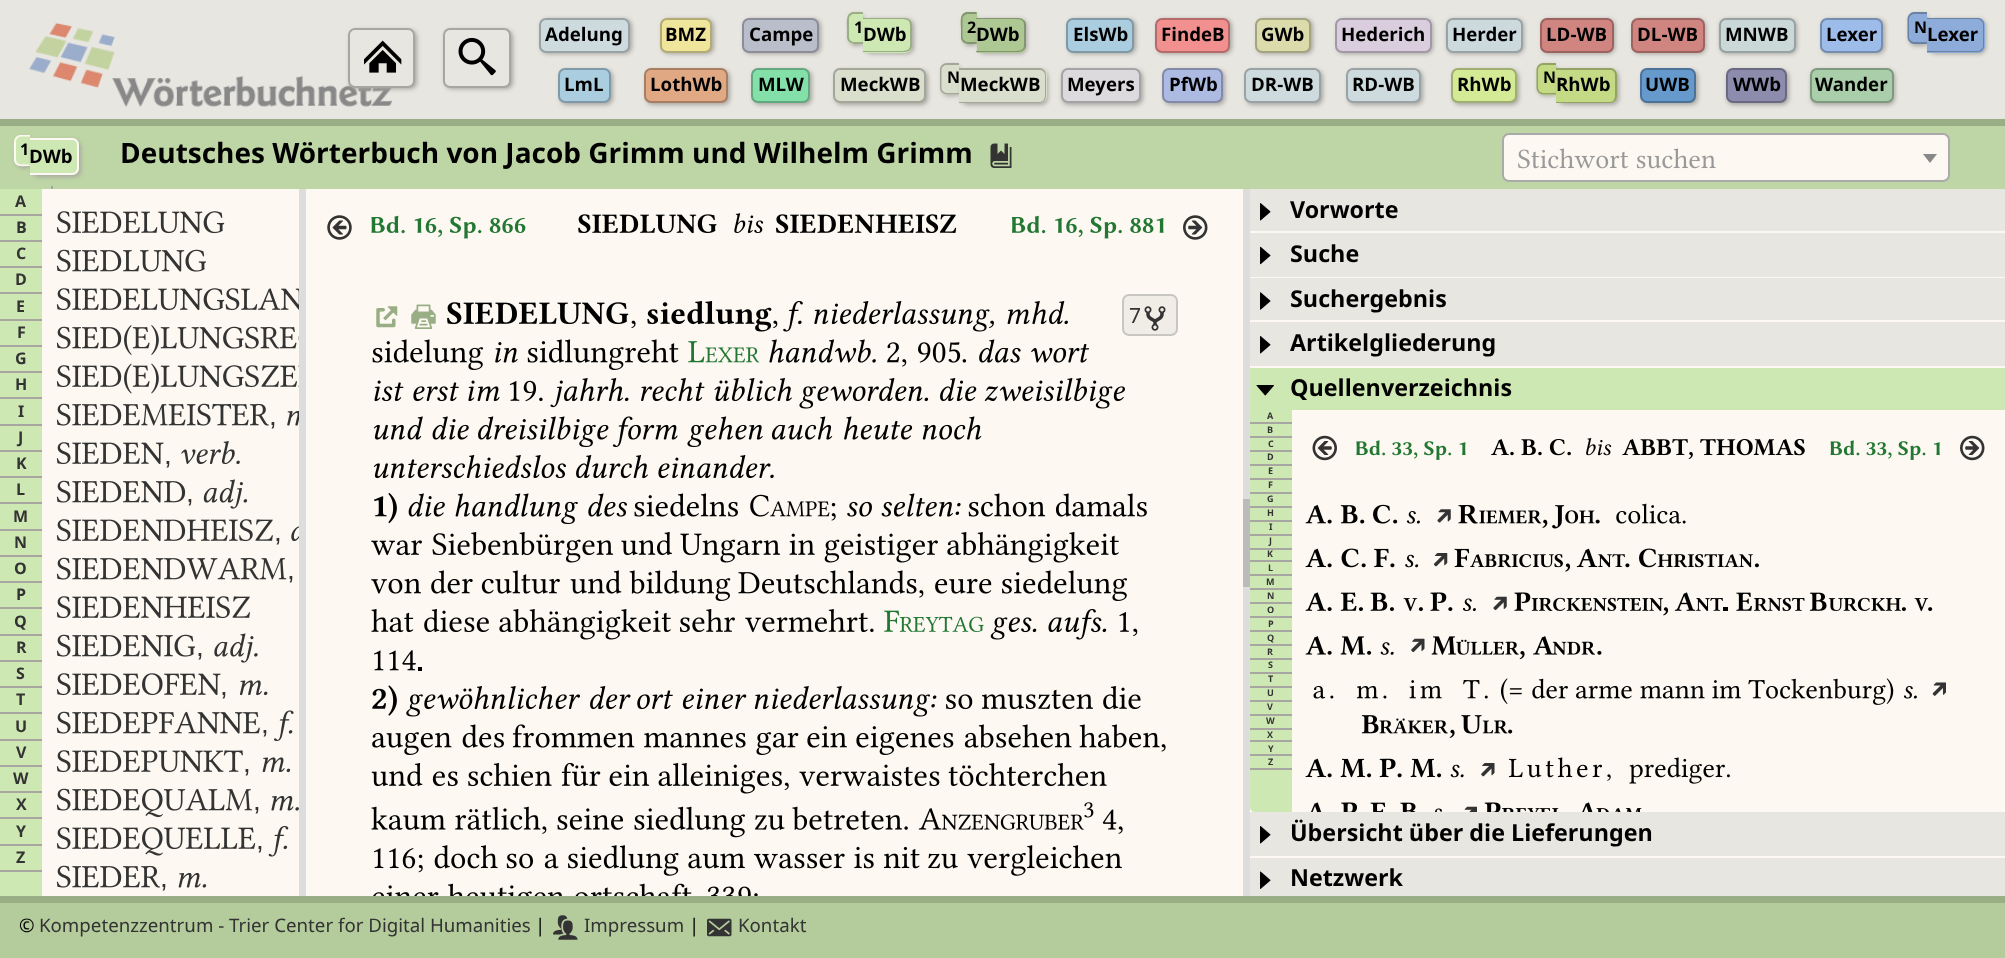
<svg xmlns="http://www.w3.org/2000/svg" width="2005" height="958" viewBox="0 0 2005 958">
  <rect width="100%" height="100%" fill="rgb(154,174,134)"/>
  <rect x="0" y="0" width="2005" height="119" fill="rgb(232,230,225)"/>
  <image x="29" y="22" width="363" height="85" href="pic1.png"/>
  <rect x="350" y="30" width="67" height="59" rx="7" fill="rgb(168,166,161)" filter="blur(2px)"/>
  <rect x="349" y="29" width="65" height="58" rx="6" fill="rgb(232,230,225)" stroke="rgb(168,166,161)" stroke-width="2"/>
  <image x="364" y="40" width="38" height="33" href="pic2.png"/>
  <rect x="445" y="30" width="68" height="59" rx="7" fill="rgb(168,166,161)" filter="blur(2px)"/>
  <rect x="444" y="29" width="66" height="58" rx="6" fill="rgb(232,230,225)" stroke="rgb(168,166,161)" stroke-width="2"/>
  <image x="458" y="37" width="38" height="39" href="pic3.png"/>
  <rect x="541" y="19" width="91" height="35" rx="7" fill="rgb(168,166,161)" filter="blur(2px)"/>
  <rect x="540" y="19" width="89" height="33" rx="6" fill="rgb(205,218,222)" stroke="rgb(153,163,166)" stroke-width="2"/>
  <text x="545" y="41" font-family="Noto Sans" font-size="18.7" font-weight="bold" fill="rgb(0,0,0)">Adelung</text>
  <rect x="662" y="19" width="52" height="35" rx="7" fill="rgb(168,166,161)" filter="blur(2px)"/>
  <rect x="661" y="19" width="50" height="33" rx="6" fill="rgb(239,229,155)" stroke="rgb(179,171,116)" stroke-width="2"/>
  <text x="665" y="41" font-family="Noto Sans" font-size="18.7" font-weight="bold" fill="rgb(0,0,0)">BMZ</text>
  <rect x="744" y="19" width="77" height="35" rx="7" fill="rgb(168,166,161)" filter="blur(2px)"/>
  <rect x="743" y="19" width="75" height="33" rx="6" fill="rgb(186,190,203)" stroke="rgb(139,142,152)" stroke-width="2"/>
  <text x="749" y="41" font-family="Noto Sans" font-size="18.7" font-weight="bold" fill="rgb(0,0,0)">Campe</text>
  <rect x="849" y="14" width="16" height="32" rx="7" fill="rgb(168,166,161)" filter="blur(2px)"/>
  <path d="M854 12H863V44H854C850 44 847 41 847 37V19C847 15 850 12 854 12Z" fill="rgb(206,232,179)"/>
  <path d="M854 12H863V44C857.5 44 848.5 45.5 847 38V28C847 22.5 845.5 12 854 12ZM854 14H863V42H854C851 42 849 39.5 849 37V19C849 16.5 851 14 854 14Z" fill="rgb(154,174,134)" fill-rule="evenodd"/>
  <rect x="865" y="19" width="49" height="35" rx="7" fill="rgb(168,166,161)" filter="blur(2px)"/>
  <text x="854" y="33" font-family="Noto Sans" font-size="16" font-weight="bold" fill="rgb(0,0,0)">1</text>
  <path d="M863 18H905C909 18 912 21 912 25V46C912 50 909 53 905 53H863Z" fill="rgb(206,232,179)"/>
  <path d="M863 18H905C909 18 912 21 912 24V46C912 49 909 52 905 52H863ZM863 19H898C912 19 910 21 910 35C910 49 912 51 898 51H863Z" fill="rgb(154,174,134)" fill-rule="evenodd"/>
  <text x="863" y="41" font-family="Noto Sans" font-size="18.7" font-weight="bold" fill="rgb(0,0,0)">DWb</text>
  <rect x="963" y="14" width="15" height="32" rx="7" fill="rgb(168,166,161)" filter="blur(2px)"/>
  <path d="M968 12H977V44H968C964 44 961 41 961 37V19C961 15 964 12 968 12Z" fill="rgb(174,200,147)"/>
  <path d="M968 12H976.5V44C971 44 962.5 45.5 961 38V28C961 22.5 959 12 968 12ZM968 14H976.5V42H968C965 42 962.5 39.5 962.5 37V19C962.5 16.5 965 14 968 14Z" fill="rgb(130,150,110)" fill-rule="evenodd"/>
  <rect x="978" y="19" width="49" height="35" rx="7" fill="rgb(168,166,161)" filter="blur(2px)"/>
  <text x="967" y="33" font-family="Noto Sans" font-size="16" font-weight="bold" fill="rgb(0,0,0)">2</text>
  <path d="M977 18H1019C1023 18 1026 21 1026 25V46C1026 50 1023 53 1019 53H977Z" fill="rgb(174,200,147)"/>
  <path d="M976 18H1018C1022 18 1026 21 1026 24V46C1026 49 1022 52 1018 52H976ZM976 19H1012C1026 19 1024 21 1024 35C1024 49 1026 51 1012 51H976Z" fill="rgb(130,150,110)" fill-rule="evenodd"/>
  <text x="976" y="41" font-family="Noto Sans" font-size="18.7" font-weight="bold" fill="rgb(0,0,0)">DWb</text>
  <rect x="1068" y="19" width="68" height="35" rx="7" fill="rgb(168,166,161)" filter="blur(2px)"/>
  <rect x="1067" y="19" width="66" height="33" rx="6" fill="rgb(170,205,223)" stroke="rgb(127,153,167)" stroke-width="2"/>
  <text x="1073" y="41" font-family="Noto Sans" font-size="18.7" font-weight="bold" fill="rgb(0,0,0)">ElsWb</text>
  <rect x="1157" y="19" width="75" height="35" rx="7" fill="rgb(168,166,161)" filter="blur(2px)"/>
  <rect x="1156" y="19" width="73" height="33" rx="6" fill="rgb(242,143,143)" stroke="rgb(181,107,107)" stroke-width="2"/>
  <text x="1161" y="41" font-family="Noto Sans" font-size="18.7" font-weight="bold" fill="rgb(0,0,0)">FindeB</text>
  <rect x="1257" y="19" width="56" height="35" rx="7" fill="rgb(168,166,161)" filter="blur(2px)"/>
  <rect x="1256" y="19" width="54" height="33" rx="6" fill="rgb(219,219,172)" stroke="rgb(164,164,129)" stroke-width="2"/>
  <text x="1261" y="41" font-family="Noto Sans" font-size="18.7" font-weight="bold" fill="rgb(0,0,0)">GWb</text>
  <rect x="1337" y="19" width="96" height="35" rx="7" fill="rgb(168,166,161)" filter="blur(2px)"/>
  <rect x="1336" y="19" width="95" height="33" rx="6" fill="rgb(218,205,222)" stroke="rgb(163,153,166)" stroke-width="2"/>
  <text x="1341" y="41" font-family="Noto Sans" font-size="18.7" font-weight="bold" fill="rgb(0,0,0)">Hederich</text>
  <rect x="1447" y="19" width="77" height="35" rx="7" fill="rgb(168,166,161)" filter="blur(2px)"/>
  <rect x="1447" y="19" width="75" height="33" rx="6" fill="rgb(204,218,222)" stroke="rgb(153,163,166)" stroke-width="2"/>
  <text x="1452" y="41" font-family="Noto Sans" font-size="18.7" font-weight="bold" fill="rgb(0,0,0)">Herder</text>
  <rect x="1542" y="19" width="73" height="35" rx="7" fill="rgb(168,166,161)" filter="blur(2px)"/>
  <rect x="1541" y="19" width="72" height="33" rx="6" fill="rgb(208,133,129)" stroke="rgb(156,99,96)" stroke-width="2"/>
  <text x="1546" y="41" font-family="Noto Sans" font-size="18.7" font-weight="bold" fill="rgb(0,0,0)">LD-WB</text>
  <rect x="1633" y="19" width="73" height="35" rx="7" fill="rgb(168,166,161)" filter="blur(2px)"/>
  <rect x="1632" y="19" width="72" height="33" rx="6" fill="rgb(208,133,129)" stroke="rgb(156,99,96)" stroke-width="2"/>
  <text x="1637" y="41" font-family="Noto Sans" font-size="18.7" font-weight="bold" fill="rgb(0,0,0)">DL-WB</text>
  <rect x="1720" y="19" width="77" height="35" rx="7" fill="rgb(168,166,161)" filter="blur(2px)"/>
  <rect x="1720" y="19" width="75" height="33" rx="6" fill="rgb(202,216,216)" stroke="rgb(151,162,162)" stroke-width="2"/>
  <text x="1725" y="41" font-family="Noto Sans" font-size="18.7" font-weight="bold" fill="rgb(0,0,0)">MNWB</text>
  <rect x="1822" y="19" width="63" height="35" rx="7" fill="rgb(168,166,161)" filter="blur(2px)"/>
  <rect x="1821" y="19" width="61" height="33" rx="6" fill="rgb(157,188,234)" stroke="rgb(117,141,175)" stroke-width="2"/>
  <text x="1826" y="41" font-family="Noto Sans" font-size="18.7" font-weight="bold" fill="rgb(0,0,0)">Lexer</text>
  <rect x="1909" y="14" width="20" height="32" rx="7" fill="rgb(168,166,161)" filter="blur(2px)"/>
  <path d="M1915 12H1927V44H1915C1911 44 1908 41 1908 37V19C1908 15 1911 12 1915 12Z" fill="rgb(141,172,218)"/>
  <path d="M1914.5 12H1927V44H1914.5C1910.5 44 1907.5 40.5 1907.5 37V19C1907.5 15.5 1910.5 12 1914.5 12ZM1914.5 14H1927V42H1914.5C1911.5 42 1909 39.5 1909 37V19C1909 16.5 1911.5 14 1914.5 14Z" fill="rgb(105,129,163)" fill-rule="evenodd"/>
  <rect x="1929" y="19" width="57" height="35" rx="7" fill="rgb(168,166,161)" filter="blur(2px)"/>
  <text x="1914" y="33" font-family="Noto Sans" font-size="16" font-weight="bold" fill="rgb(0,0,0)">N</text>
  <path d="M1927 18H1978C1982 18 1985 21 1985 25V46C1985 50 1982 53 1978 53H1927Z" fill="rgb(141,172,218)"/>
  <path d="M1927 18H1978C1981 18 1984 21 1984 24V46C1984 49 1981 52 1978 52H1927ZM1927 19H1978C1980 19 1983 22 1983 24V46C1983 48 1980 51 1978 51H1927Z" fill="rgb(105,129,163)" fill-rule="evenodd"/>
  <text x="1927" y="41" font-family="Noto Sans" font-size="18.7" font-weight="bold" fill="rgb(0,0,0)">Lexer</text>
  <rect x="560" y="70" width="53" height="35" rx="7" fill="rgb(168,166,161)" filter="blur(2px)"/>
  <rect x="559" y="69" width="51" height="33" rx="6" fill="rgb(170,205,223)" stroke="rgb(127,153,167)" stroke-width="2"/>
  <text x="564" y="91" font-family="Noto Sans" font-size="18.7" font-weight="bold" fill="rgb(0,0,0)">LmL</text>
  <rect x="646" y="70" width="84" height="35" rx="7" fill="rgb(168,166,161)" filter="blur(2px)"/>
  <rect x="645" y="69" width="82" height="33" rx="6" fill="rgb(224,169,132)" stroke="rgb(168,126,99)" stroke-width="2"/>
  <text x="650" y="91" font-family="Noto Sans" font-size="18.7" font-weight="bold" fill="rgb(0,0,0)">LothWb</text>
  <rect x="753" y="70" width="59" height="35" rx="7" fill="rgb(168,166,161)" filter="blur(2px)"/>
  <rect x="752" y="69" width="57" height="33" rx="6" fill="rgb(132,224,169)" stroke="rgb(99,168,126)" stroke-width="2"/>
  <text x="758" y="91" font-family="Noto Sans" font-size="18.7" font-weight="bold" fill="rgb(0,0,0)">MLW</text>
  <rect x="835" y="70" width="93" height="35" rx="7" fill="rgb(168,166,161)" filter="blur(2px)"/>
  <rect x="834" y="69" width="91" height="33" rx="6" fill="rgb(218,222,205)" stroke="rgb(163,166,153)" stroke-width="2"/>
  <text x="840" y="91" font-family="Noto Sans" font-size="18.7" font-weight="bold" fill="rgb(0,0,0)">MeckWB</text>
  <rect x="942" y="65" width="19" height="31" rx="7" fill="rgb(168,166,161)" filter="blur(2px)"/>
  <path d="M947 63H959V95H947C943 95 940 92 940 88V70C940 66 943 63 947 63Z" fill="rgb(218,222,205)"/>
  <path d="M947 63H959V94.5H947C943 94.5 940 91.5 940 87.5V70C940 66 943 63 947 63ZM947 65H959V93H947C944 93 941.5 90.5 941.5 87.5V70C941.5 67 944 65 947 65Z" fill="rgb(163,166,153)" fill-rule="evenodd"/>
  <rect x="961" y="70" width="87" height="35" rx="7" fill="rgb(168,166,161)" filter="blur(2px)"/>
  <text x="947" y="83" font-family="Noto Sans" font-size="16" font-weight="bold" fill="rgb(0,0,0)">N</text>
  <path d="M959 68H1040C1044 68 1047 71 1047 75V96C1047 100 1044 103 1040 103H959Z" fill="rgb(218,222,205)"/>
  <path d="M959 68H1040C1043 68 1046 71 1046 75V96C1046 100 1043 103 1040 103H959ZM959 70H1040C1042 70 1045 72 1045 75V96C1045 99 1042 102 1040 102H959Z" fill="rgb(163,166,153)" fill-rule="evenodd"/>
  <text x="960" y="91" font-family="Noto Sans" font-size="18.7" font-weight="bold" fill="rgb(0,0,0)">MeckWB</text>
  <rect x="1062" y="70" width="81" height="35" rx="7" fill="rgb(168,166,161)" filter="blur(2px)"/>
  <rect x="1062" y="69" width="78" height="33" rx="6" fill="rgb(221,218,222)" stroke="rgb(165,163,166)" stroke-width="2"/>
  <text x="1067" y="91" font-family="Noto Sans" font-size="18.7" font-weight="bold" fill="rgb(0,0,0)">Meyers</text>
  <rect x="1164" y="70" width="61" height="35" rx="7" fill="rgb(168,166,161)" filter="blur(2px)"/>
  <rect x="1163" y="69" width="59" height="33" rx="6" fill="rgb(173,186,226)" stroke="rgb(129,139,169)" stroke-width="2"/>
  <text x="1169" y="91" font-family="Noto Sans" font-size="18.7" font-weight="bold" fill="rgb(0,0,0)">PfWb</text>
  <rect x="1246" y="70" width="77" height="35" rx="7" fill="rgb(168,166,161)" filter="blur(2px)"/>
  <rect x="1245" y="69" width="75" height="33" rx="6" fill="rgb(205,218,222)" stroke="rgb(153,163,166)" stroke-width="2"/>
  <text x="1251" y="91" font-family="Noto Sans" font-size="18.7" font-weight="bold" fill="rgb(0,0,0)">DR-WB</text>
  <rect x="1348" y="70" width="75" height="35" rx="7" fill="rgb(168,166,161)" filter="blur(2px)"/>
  <rect x="1347" y="69" width="73" height="33" rx="6" fill="rgb(205,218,222)" stroke="rgb(153,163,166)" stroke-width="2"/>
  <text x="1352" y="91" font-family="Noto Sans" font-size="18.7" font-weight="bold" fill="rgb(0,0,0)">RD-WB</text>
  <rect x="1453" y="70" width="66" height="35" rx="7" fill="rgb(168,166,161)" filter="blur(2px)"/>
  <rect x="1452" y="69" width="64" height="33" rx="6" fill="rgb(213,234,149)" stroke="rgb(159,175,111)" stroke-width="2"/>
  <text x="1457" y="91" font-family="Noto Sans" font-size="18.7" font-weight="bold" fill="rgb(0,0,0)">RhWb</text>
  <rect x="1538" y="65" width="20" height="31" rx="7" fill="rgb(168,166,161)" filter="blur(2px)"/>
  <path d="M1544 63H1556V95H1544C1540 95 1537 92 1537 88V70C1537 66 1540 63 1544 63Z" fill="rgb(197,218,133)"/>
  <path d="M1543.5 63H1556V94.5H1543.5C1539.5 94.5 1536.5 91.5 1536.5 87.5V70C1536.5 66 1539.5 63 1543.5 63ZM1543.5 65H1556V93H1543.5C1540.5 93 1538 90.5 1538 87.5V70C1538 67 1540.5 65 1543.5 65Z" fill="rgb(147,163,99)" fill-rule="evenodd"/>
  <rect x="1558" y="70" width="61" height="35" rx="7" fill="rgb(168,166,161)" filter="blur(2px)"/>
  <text x="1543" y="83" font-family="Noto Sans" font-size="16" font-weight="bold" fill="rgb(0,0,0)">N</text>
  <path d="M1556 68H1610C1614 68 1617 71 1617 75V96C1617 100 1614 103 1610 103H1556Z" fill="rgb(197,218,133)"/>
  <path d="M1556 68H1610C1614 68 1617 71 1617 75V96C1617 100 1614 103 1610 103H1556ZM1556 70H1610C1613 70 1615 72 1615 75V96C1615 99 1613 102 1610 102H1556Z" fill="rgb(147,163,99)" fill-rule="evenodd"/>
  <text x="1556" y="91" font-family="Noto Sans" font-size="18.7" font-weight="bold" fill="rgb(0,0,0)">RhWb</text>
  <rect x="1642" y="70" width="56" height="35" rx="7" fill="rgb(168,166,161)" filter="blur(2px)"/>
  <rect x="1641" y="69" width="54" height="33" rx="6" fill="rgb(102,153,204)" stroke="rgb(76,114,153)" stroke-width="2"/>
  <text x="1645" y="91" font-family="Noto Sans" font-size="18.7" font-weight="bold" fill="rgb(0,0,0)">UWB</text>
  <rect x="1727" y="70" width="62" height="35" rx="7" fill="rgb(168,166,161)" filter="blur(2px)"/>
  <rect x="1727" y="69" width="59" height="33" rx="6" fill="rgb(141,140,173)" stroke="rgb(105,105,129)" stroke-width="2"/>
  <text x="1733" y="91" font-family="Noto Sans" font-size="18.7" font-weight="bold" fill="rgb(0,0,0)">WWb</text>
  <rect x="1811" y="70" width="84" height="35" rx="7" fill="rgb(168,166,161)" filter="blur(2px)"/>
  <rect x="1811" y="69" width="82" height="33" rx="6" fill="rgb(170,205,170)" stroke="rgb(127,153,127)" stroke-width="2"/>
  <text x="1815" y="91" font-family="Noto Sans" font-size="18.7" font-weight="bold" fill="rgb(0,0,0)">Wander</text>
  <rect x="0" y="126" width="2005" height="63" fill="rgb(190,214,165)"/>
  <rect x="16" y="137" width="16" height="31" rx="7" fill="rgb(168,166,161)" filter="blur(2px)"/>
  <path d="M21 135H30V166H21C17 166 14 163 14 159V142C14 138 17 135 21 135Z" fill="rgb(206,232,179)"/>
  <path d="M21 135H30V166C24.5 166 15.5 168 14 160.5V150.5C14 145 12.5 135 21 135ZM21 136.5H30V164.5H21C18 164.5 16 162 16 159V142C16 139 18 136.5 21 136.5Z" fill="rgb(253,249,242)" fill-rule="evenodd"/>
  <rect x="32" y="140" width="49" height="37" rx="7" fill="rgb(168,166,161)" filter="blur(2px)"/>
  <text x="20" y="155" font-family="Noto Sans" font-size="16" font-weight="bold" fill="rgb(0,0,0)">1</text>
  <path d="M30 138H72C76 138 79 141 79 145V168C79 172 76 175 72 175H30Z" fill="rgb(206,232,179)"/>
  <path d="M30 138H72C76 138 79 141 79 145V168C79 172 76 175 72 175H30ZM30 140H72C75 140 77 142 77 145V168C77 171 75 173 72 173H30Z" fill="rgb(253,249,242)" fill-rule="evenodd"/>
  <text x="29" y="163" font-family="Noto Sans" font-size="18.7" font-weight="bold" fill="rgb(0,0,0)">DWb</text>
  <text x="120" y="163" font-family="Noto Sans" font-size="28" font-weight="bold" fill="rgb(0,0,0)">Deutsches Wörterbuch von Jacob Grimm und Wilhelm Grimm</text>
  <image x="990" y="143" width="22" height="25" href="pic4.png"/>
  <rect x="1503" y="134" width="446" height="47" rx="6" fill="rgb(253,249,242)" stroke="rgb(170,170,170)" stroke-width="2"/>
  <image x="1518" y="148" width="198" height="21" href="pic5.png"/>
  <path d="M1923 154H1937L1930 163Z" fill="rgb(136,136,136)"/>
  <rect x="51" y="186" width="2" height="3" fill="rgb(168,166,161)"/>
  <rect x="299" y="189" width="7" height="707" fill="rgb(221,221,221)"/>
  <rect x="1243" y="189" width="7" height="707" fill="rgb(221,221,221)"/>
  <rect x="1243" y="499" width="7" height="88" fill="rgb(187,187,187)"/>
  <rect x="0" y="189" width="42" height="707" fill="rgb(206,232,179)"/>
  <rect x="0" y="214" width="42" height="2" fill="rgb(168,166,161)"/>
  <text x="15" y="207" font-family="Noto Sans" font-size="16" font-weight="bold" fill="rgb(51,51,51)">A</text>
  <rect x="0" y="240" width="42" height="2" fill="rgb(168,166,161)"/>
  <text x="16" y="233" font-family="Noto Sans" font-size="16" font-weight="bold" fill="rgb(51,51,51)">B</text>
  <rect x="0" y="266" width="42" height="2" fill="rgb(168,166,161)"/>
  <text x="16" y="259" font-family="Noto Sans" font-size="16" font-weight="bold" fill="rgb(51,51,51)">C</text>
  <rect x="0" y="292" width="42" height="2" fill="rgb(168,166,161)"/>
  <text x="15" y="285" font-family="Noto Sans" font-size="16" font-weight="bold" fill="rgb(51,51,51)">D</text>
  <rect x="0" y="319" width="42" height="2" fill="rgb(168,166,161)"/>
  <text x="16" y="312" font-family="Noto Sans" font-size="16" font-weight="bold" fill="rgb(51,51,51)">E</text>
  <rect x="0" y="345" width="42" height="2" fill="rgb(168,166,161)"/>
  <text x="17" y="338" font-family="Noto Sans" font-size="16" font-weight="bold" fill="rgb(51,51,51)">F</text>
  <rect x="0" y="371" width="42" height="2" fill="rgb(168,166,161)"/>
  <text x="15" y="364" font-family="Noto Sans" font-size="16" font-weight="bold" fill="rgb(51,51,51)">G</text>
  <rect x="0" y="397" width="42" height="2" fill="rgb(168,166,161)"/>
  <text x="15" y="390" font-family="Noto Sans" font-size="16" font-weight="bold" fill="rgb(51,51,51)">H</text>
  <rect x="0" y="424" width="42" height="2" fill="rgb(168,166,161)"/>
  <text x="18" y="417" font-family="Noto Sans" font-size="16" font-weight="bold" fill="rgb(51,51,51)">I</text>
  <rect x="0" y="450" width="42" height="2" fill="rgb(168,166,161)"/>
  <text x="18" y="443" font-family="Noto Sans" font-size="16" font-weight="bold" fill="rgb(51,51,51)">J</text>
  <rect x="0" y="476" width="42" height="2" fill="rgb(168,166,161)"/>
  <text x="16" y="469" font-family="Noto Sans" font-size="16" font-weight="bold" fill="rgb(51,51,51)">K</text>
  <rect x="0" y="502" width="42" height="2" fill="rgb(168,166,161)"/>
  <text x="16" y="495" font-family="Noto Sans" font-size="16" font-weight="bold" fill="rgb(51,51,51)">L</text>
  <rect x="0" y="529" width="42" height="2" fill="rgb(168,166,161)"/>
  <text x="13" y="522" font-family="Noto Sans" font-size="16" font-weight="bold" fill="rgb(51,51,51)">M</text>
  <rect x="0" y="555" width="42" height="2" fill="rgb(168,166,161)"/>
  <text x="14" y="548" font-family="Noto Sans" font-size="16" font-weight="bold" fill="rgb(51,51,51)">N</text>
  <rect x="0" y="581" width="42" height="2" fill="rgb(168,166,161)"/>
  <text x="14" y="574" font-family="Noto Sans" font-size="16" font-weight="bold" fill="rgb(51,51,51)">O</text>
  <rect x="0" y="607" width="42" height="2" fill="rgb(168,166,161)"/>
  <text x="16" y="600" font-family="Noto Sans" font-size="16" font-weight="bold" fill="rgb(51,51,51)">P</text>
  <rect x="0" y="634" width="42" height="2" fill="rgb(168,166,161)"/>
  <text x="14" y="627" font-family="Noto Sans" font-size="16" font-weight="bold" fill="rgb(51,51,51)">Q</text>
  <rect x="0" y="660" width="42" height="2" fill="rgb(168,166,161)"/>
  <text x="16" y="653" font-family="Noto Sans" font-size="16" font-weight="bold" fill="rgb(51,51,51)">R</text>
  <rect x="0" y="686" width="42" height="2" fill="rgb(168,166,161)"/>
  <text x="16" y="679" font-family="Noto Sans" font-size="16" font-weight="bold" fill="rgb(51,51,51)">S</text>
  <rect x="0" y="712" width="42" height="2" fill="rgb(168,166,161)"/>
  <text x="16" y="705" font-family="Noto Sans" font-size="16" font-weight="bold" fill="rgb(51,51,51)">T</text>
  <rect x="0" y="739" width="42" height="2" fill="rgb(168,166,161)"/>
  <text x="15" y="732" font-family="Noto Sans" font-size="16" font-weight="bold" fill="rgb(51,51,51)">U</text>
  <rect x="0" y="765" width="42" height="2" fill="rgb(168,166,161)"/>
  <text x="16" y="758" font-family="Noto Sans" font-size="16" font-weight="bold" fill="rgb(51,51,51)">V</text>
  <rect x="0" y="791" width="42" height="2" fill="rgb(168,166,161)"/>
  <text x="13" y="784" font-family="Noto Sans" font-size="16" font-weight="bold" fill="rgb(51,51,51)">W</text>
  <rect x="0" y="817" width="42" height="2" fill="rgb(168,166,161)"/>
  <text x="16" y="810" font-family="Noto Sans" font-size="16" font-weight="bold" fill="rgb(51,51,51)">X</text>
  <rect x="0" y="844" width="42" height="2" fill="rgb(168,166,161)"/>
  <text x="16" y="837" font-family="Noto Sans" font-size="16" font-weight="bold" fill="rgb(51,51,51)">Y</text>
  <rect x="0" y="870" width="42" height="2" fill="rgb(168,166,161)"/>
  <text x="16" y="863" font-family="Noto Sans" font-size="16" font-weight="bold" fill="rgb(51,51,51)">Z</text>
  <rect x="42" y="189" width="257" height="707" fill="rgb(253,249,242)"/>
  <image x="56" y="211" width="169" height="23" href="pic6.png"/>
  <image x="56" y="249" width="150" height="23" href="pic7.png"/>
  <image x="56" y="288" width="243" height="23" href="pic8.png"/>
  <image x="56" y="325" width="243" height="30" href="pic9.png"/>
  <image x="56" y="363" width="243" height="31" href="pic10.png"/>
  <image x="56" y="403" width="213" height="23" href="pic11.png"/>
  <text x="269" y="425" font-family="Liberation Sans" font-size="28" fill="rgb(51,51,51)">,</text>
  <image x="287" y="410" width="12" height="16" href="pic12.png"/>
  <image x="56" y="442" width="108" height="23" href="pic13.png"/>
  <text x="164" y="464" font-family="Liberation Sans" font-size="28" fill="rgb(51,51,51)">,</text>
  <image x="181" y="441" width="59" height="24" href="pic14.png"/>
  <image x="56" y="480" width="130" height="23" href="pic15.png"/>
  <text x="186" y="502" font-family="Liberation Sans" font-size="28" fill="rgb(51,51,51)">,</text>
  <image x="203" y="479" width="45" height="30" href="pic16.png"/>
  <image x="56" y="519" width="217" height="23" href="pic17.png"/>
  <text x="274" y="541" font-family="Liberation Sans" font-size="28" fill="rgb(51,51,51)">,</text>
  <image x="291" y="526" width="8" height="16" href="pic18.png"/>
  <image x="56" y="557" width="231" height="23" href="pic19.png"/>
  <text x="287" y="579" font-family="Liberation Sans" font-size="28" fill="rgb(51,51,51)">,</text>
  <image x="56" y="596" width="194" height="23" href="pic20.png"/>
  <image x="56" y="634" width="139" height="23" href="pic21.png"/>
  <text x="196" y="656" font-family="Liberation Sans" font-size="28" fill="rgb(51,51,51)">,</text>
  <image x="214" y="633" width="44" height="30" href="pic22.png"/>
  <image x="56" y="673" width="165" height="23" href="pic23.png"/>
  <text x="220" y="695" font-family="Liberation Sans" font-size="28" fill="rgb(51,51,51)">,</text>
  <image x="239" y="680" width="29" height="16" href="pic24.png"/>
  <image x="56" y="711" width="204" height="23" href="pic25.png"/>
  <text x="261" y="733" font-family="Liberation Sans" font-size="28" fill="rgb(51,51,51)">,</text>
  <image x="274" y="710" width="20" height="31" href="pic26.png"/>
  <image x="56" y="750" width="187" height="23" href="pic27.png"/>
  <text x="243" y="772" font-family="Liberation Sans" font-size="28" fill="rgb(51,51,51)">,</text>
  <image x="262" y="757" width="29" height="16" href="pic28.png"/>
  <image x="56" y="788" width="196" height="30" href="pic29.png"/>
  <text x="253" y="810" font-family="Liberation Sans" font-size="28" fill="rgb(51,51,51)">,</text>
  <image x="271" y="795" width="28" height="16" href="pic30.png"/>
  <image x="56" y="827" width="200" height="29" href="pic31.png"/>
  <text x="256" y="849" font-family="Liberation Sans" font-size="28" fill="rgb(51,51,51)">,</text>
  <image x="268" y="825" width="21" height="32" href="pic32.png"/>
  <image x="56" y="865" width="104" height="23" href="pic33.png"/>
  <text x="160" y="887" font-family="Liberation Sans" font-size="28" fill="rgb(51,51,51)">,</text>
  <image x="178" y="872" width="29" height="16" href="pic34.png"/>
  <rect x="306" y="189" width="937" height="707" fill="rgb(253,249,242)"/>
  <image x="327" y="215" width="25" height="25" href="pic35.png"/>
  <image x="371" y="215" width="155" height="24" href="pic36.png"/>
  <image x="578" y="214" width="139" height="20" href="pic37.png"/>
  <image x="734" y="213" width="30" height="20" href="pic38.png"/>
  <image x="776" y="214" width="181" height="20" href="pic39.png"/>
  <image x="1012" y="215" width="152" height="24" href="pic40.png"/>
  <image x="1183" y="215" width="25" height="25" href="pic41.png"/>
  <image x="376" y="306" width="22" height="22" href="pic42.png"/>
  <image x="411" y="304" width="25" height="25" href="pic43.png"/>
  <image x="447" y="302" width="182" height="23" href="pic44.png"/>
  <image x="647" y="301" width="125" height="31" href="pic45.png"/>
  <image x="783" y="301" width="20" height="31" href="pic46.png"/>
  <image x="814" y="301" width="180" height="31" href="pic47.png"/>
  <image x="1007" y="301" width="61" height="24" href="pic48.png"/>
  <rect x="1123" y="295" width="54" height="40" rx="6" fill="rgb(240,237,230)" stroke="rgb(200,198,193)" stroke-width="2"/>
  <text x="1129" y="323" font-family="Noto Sans" font-size="21" fill="rgb(51,51,51)">7</text>
  <image x="1144" y="306" width="22" height="25" href="pic49.png"/>
  <image x="631" y="320" width="5" height="8" href="pic50.png"/>
  <image x="773" y="320" width="5" height="8" href="pic51.png"/>
  <image x="372" y="339" width="112" height="31" href="pic52.png"/>
  <image x="495" y="342" width="23" height="21" href="pic53.png"/>
  <image x="527" y="339" width="152" height="31" href="pic54.png"/>
  <image x="688" y="341" width="17" height="22" href="pic55.png"/>
  <image x="705" y="347" width="55" height="16" href="pic56.png"/>
  <image x="769" y="339" width="107" height="24" href="pic57.png"/>
  <image x="887" y="342" width="20" height="25" href="pic58.png"/>
  <image x="918" y="342" width="43" height="21" href="pic59.png"/>
  <image x="962" y="359" width="5" height="4" href="pic60.png"/>
  <image x="979" y="339" width="42" height="24" href="pic61.png"/>
  <image x="1031" y="344" width="58" height="19" href="pic62.png"/>
  <image x="374" y="380" width="30" height="22" href="pic63.png"/>
  <image x="413" y="382" width="46" height="20" href="pic64.png"/>
  <image x="468" y="380" width="32" height="22" href="pic65.png"/>
  <image x="509" y="380" width="34" height="22" href="pic66.png"/>
  <image x="550" y="378" width="79" height="30" href="pic67.png"/>
  <image x="641" y="378" width="64" height="24" href="pic68.png"/>
  <image x="714" y="378" width="78" height="24" href="pic69.png"/>
  <image x="799" y="378" width="130" height="31" href="pic70.png"/>
  <image x="940" y="378" width="37" height="24" href="pic71.png"/>
  <image x="984" y="378" width="141" height="31" href="pic72.png"/>
  <image x="373" y="416" width="50" height="24" href="pic73.png"/>
  <image x="432" y="416" width="37" height="24" href="pic74.png"/>
  <image x="478" y="416" width="131" height="31" href="pic75.png"/>
  <image x="612" y="416" width="66" height="31" href="pic76.png"/>
  <image x="687" y="416" width="76" height="31" href="pic77.png"/>
  <image x="772" y="416" width="61" height="24" href="pic78.png"/>
  <image x="844" y="416" width="69" height="24" href="pic79.png"/>
  <image x="922" y="416" width="60" height="24" href="pic80.png"/>
  <image x="373" y="455" width="193" height="24" href="pic81.png"/>
  <image x="576" y="455" width="72" height="24" href="pic82.png"/>
  <image x="658" y="455" width="116" height="24" href="pic83.png"/>
  <image x="374" y="492" width="23" height="32" href="pic84.png"/>
  <image x="408" y="493" width="37" height="24" href="pic85.png"/>
  <image x="455" y="493" width="123" height="31" href="pic86.png"/>
  <image x="588" y="493" width="39" height="24" href="pic87.png"/>
  <image x="634" y="493" width="104" height="24" href="pic88.png"/>
  <image x="750" y="494" width="19" height="23" href="pic89.png"/>
  <image x="770" y="501" width="60" height="16" href="pic90.png"/>
  <image x="831" y="502" width="5" height="19" href="pic91.png"/>
  <image x="847" y="501" width="25" height="16" href="pic92.png"/>
  <image x="881" y="493" width="80" height="24" href="pic93.png"/>
  <image x="968" y="493" width="78" height="24" href="pic94.png"/>
  <image x="1055" y="493" width="92" height="24" href="pic95.png"/>
  <image x="371" y="540" width="51" height="16" href="pic96.png"/>
  <image x="432" y="532" width="182" height="31" href="pic97.png"/>
  <image x="621" y="532" width="52" height="24" href="pic98.png"/>
  <image x="680" y="533" width="101" height="30" href="pic99.png"/>
  <image x="789" y="533" width="26" height="22" href="pic100.png"/>
  <image x="824" y="533" width="114" height="30" href="pic101.png"/>
  <image x="947" y="532" width="172" height="31" href="pic102.png"/>
  <image x="371" y="578" width="50" height="16" href="pic103.png"/>
  <image x="431" y="570" width="42" height="24" href="pic104.png"/>
  <image x="481" y="570" width="79" height="24" href="pic105.png"/>
  <image x="570" y="570" width="52" height="24" href="pic106.png"/>
  <image x="629" y="570" width="102" height="31" href="pic107.png"/>
  <image x="738" y="570" width="186" height="28" href="pic108.png"/>
  <image x="935" y="578" width="57" height="16" href="pic109.png"/>
  <image x="1002" y="570" width="126" height="31" href="pic110.png"/>
  <image x="371" y="609" width="43" height="24" href="pic111.png"/>
  <image x="424" y="609" width="65" height="24" href="pic112.png"/>
  <image x="499" y="609" width="172" height="31" href="pic102.png"/>
  <image x="680" y="609" width="55" height="24" href="pic113.png"/>
  <image x="745" y="609" width="129" height="24" href="pic114.png"/>
  <image x="884" y="610" width="16" height="22" href="pic115.png"/>
  <image x="899" y="616" width="85" height="16" href="pic116.png"/>
  <image x="990" y="617" width="47" height="23" href="pic117.png"/>
  <image x="1048" y="608" width="59" height="32" href="pic118.png"/>
  <image x="1119" y="612" width="19" height="24" href="pic119.png"/>
  <image x="374" y="650" width="42" height="21" href="pic120.png"/>
  <rect x="418" y="667" width="4" height="4" fill="rgb(0,0,0)"/>
  <image x="372" y="685" width="25" height="31" href="pic121.png"/>
  <image x="406" y="686" width="174" height="31" href="pic122.png"/>
  <image x="590" y="686" width="41" height="24" href="pic123.png"/>
  <image x="637" y="690" width="36" height="20" href="pic124.png"/>
  <image x="682" y="688" width="65" height="22" href="pic125.png"/>
  <image x="754" y="686" width="183" height="31" href="pic126.png"/>
  <image x="946" y="694" width="27" height="16" href="pic127.png"/>
  <image x="981" y="689" width="112" height="21" href="pic128.png"/>
  <image x="1103" y="686" width="38" height="24" href="pic129.png"/>
  <image x="372" y="732" width="80" height="23" href="pic130.png"/>
  <image x="462" y="724" width="42" height="24" href="pic131.png"/>
  <image x="512" y="724" width="123" height="24" href="pic132.png"/>
  <image x="644" y="732" width="102" height="16" href="pic133.png"/>
  <image x="756" y="732" width="43" height="23" href="pic134.png"/>
  <image x="807" y="726" width="40" height="22" href="pic135.png"/>
  <image x="856" y="726" width="98" height="29" href="pic136.png"/>
  <image x="964" y="724" width="108" height="24" href="pic137.png"/>
  <image x="1079" y="724" width="87" height="28" href="pic138.png"/>
  <image x="371" y="763" width="52" height="24" href="pic139.png"/>
  <image x="432" y="771" width="26" height="16" href="pic140.png"/>
  <image x="468" y="763" width="84" height="24" href="pic141.png"/>
  <image x="561" y="762" width="40" height="25" href="pic142.png"/>
  <image x="609" y="764" width="41" height="23" href="pic143.png"/>
  <image x="658" y="763" width="131" height="31" href="pic144.png"/>
  <image x="799" y="764" width="141" height="23" href="pic145.png"/>
  <image x="948" y="763" width="159" height="24" href="pic146.png"/>
  <image x="371" y="806" width="75" height="24" href="pic147.png"/>
  <image x="455" y="806" width="92" height="28" href="pic148.png"/>
  <image x="557" y="808" width="67" height="22" href="pic149.png"/>
  <image x="634" y="806" width="111" height="32" href="pic150.png"/>
  <image x="754" y="815" width="31" height="15" href="pic151.png"/>
  <image x="792" y="806" width="116" height="24" href="pic152.png"/>
  <image x="918" y="808" width="24" height="22" href="pic153.png"/>
  <image x="941" y="814" width="143" height="16" href="pic154.png"/>
  <image x="1084" y="802" width="10" height="16" href="pic155.png"/>
  <image x="1102" y="809" width="21" height="25" href="pic156.png"/>
  <image x="374" y="848" width="49" height="25" href="pic157.png"/>
  <image x="434" y="845" width="64" height="24" href="pic158.png"/>
  <image x="506" y="853" width="27" height="16" href="pic159.png"/>
  <image x="544" y="853" width="15" height="16" href="pic160.png"/>
  <image x="568" y="845" width="111" height="31" href="pic161.png"/>
  <image x="688" y="853" width="57" height="16" href="pic162.png"/>
  <image x="753" y="853" width="92" height="16" href="pic163.png"/>
  <image x="854" y="846" width="20" height="23" href="pic164.png"/>
  <image x="883" y="846" width="37" height="23" href="pic165.png"/>
  <image x="928" y="853" width="30" height="16" href="pic166.png"/>
  <image x="967" y="845" width="155" height="31" href="pic167.png"/>
  <image x="373" y="885" width="66" height="11" href="pic168.png"/>
  <image x="448" y="883" width="114" height="13" href="pic169.png"/>
  <image x="575" y="883" width="117" height="13" href="pic170.png"/>
  <image x="708" y="886" width="50" height="10" href="pic171.png"/>
  <rect x="1250" y="807" width="755" height="5" fill="rgb(255,255,255)"/>
  <rect x="1250" y="189" width="755" height="42" fill="rgb(232,230,225)"/>
  <rect x="1250" y="231" width="755" height="2" fill="rgb(253,249,242)"/>
  <image x="1260" y="203" width="11" height="18" href="pic172.png"/>
  <text x="1290" y="218" font-family="Noto Sans" font-size="23.3" font-weight="bold" fill="rgb(0,0,0)">Vorworte</text>
  <rect x="1250" y="233" width="755" height="44" fill="rgb(232,230,225)"/>
  <rect x="1250" y="277" width="755" height="1" fill="rgb(253,249,242)"/>
  <image x="1260" y="246" width="11" height="19" href="pic173.png"/>
  <text x="1290" y="262" font-family="Noto Sans" font-size="23.3" font-weight="bold" fill="rgb(0,0,0)">Suche</text>
  <rect x="1250" y="278" width="755" height="42" fill="rgb(232,230,225)"/>
  <rect x="1250" y="320" width="755" height="2" fill="rgb(253,249,242)"/>
  <image x="1260" y="292" width="11" height="18" href="pic174.png"/>
  <text x="1290" y="307" font-family="Noto Sans" font-size="23.3" font-weight="bold" fill="rgb(0,0,0)">Suchergebnis</text>
  <rect x="1250" y="322" width="755" height="44" fill="rgb(232,230,225)"/>
  <rect x="1250" y="366" width="755" height="2" fill="rgb(253,249,242)"/>
  <image x="1260" y="336" width="11" height="18" href="pic172.png"/>
  <text x="1290" y="351" font-family="Noto Sans" font-size="23.3" font-weight="bold" fill="rgb(0,0,0)">Artikelgliederung</text>
  <rect x="1250" y="368" width="755" height="42" fill="rgb(206,232,179)"/>
  <image x="1256" y="385" width="18" height="11" href="pic175.png"/>
  <text x="1290" y="396" font-family="Noto Sans" font-size="23.3" font-weight="bold" fill="rgb(0,0,0)">Quellenverzeichnis</text>
  <path d="M1250 410H1292V812H1255C1252 812 1250 810 1250 807Z" fill="rgb(206,232,179)"/>
  <rect x="1250" y="422" width="43" height="2" fill="rgb(168,166,161)"/>
  <text x="1267" y="419" font-family="Noto Sans" font-size="9" font-weight="bold" fill="rgb(51,51,51)">A</text>
  <rect x="1250" y="436" width="43" height="2" fill="rgb(168,166,161)"/>
  <text x="1267" y="433" font-family="Noto Sans" font-size="9" font-weight="bold" fill="rgb(51,51,51)">B</text>
  <rect x="1250" y="450" width="43" height="2" fill="rgb(168,166,161)"/>
  <text x="1268" y="447" font-family="Noto Sans" font-size="9" font-weight="bold" fill="rgb(51,51,51)">C</text>
  <rect x="1250" y="464" width="43" height="2" fill="rgb(168,166,161)"/>
  <text x="1267" y="460" font-family="Noto Sans" font-size="9" font-weight="bold" fill="rgb(51,51,51)">D</text>
  <rect x="1250" y="478" width="43" height="2" fill="rgb(168,166,161)"/>
  <text x="1268" y="474" font-family="Noto Sans" font-size="9" font-weight="bold" fill="rgb(51,51,51)">E</text>
  <rect x="1250" y="492" width="43" height="2" fill="rgb(168,166,161)"/>
  <text x="1268" y="488" font-family="Noto Sans" font-size="9" font-weight="bold" fill="rgb(51,51,51)">F</text>
  <rect x="1250" y="506" width="43" height="2" fill="rgb(168,166,161)"/>
  <text x="1267" y="502" font-family="Noto Sans" font-size="9" font-weight="bold" fill="rgb(51,51,51)">G</text>
  <rect x="1250" y="520" width="43" height="2" fill="rgb(168,166,161)"/>
  <text x="1267" y="516" font-family="Noto Sans" font-size="9" font-weight="bold" fill="rgb(51,51,51)">H</text>
  <rect x="1250" y="534" width="43" height="2" fill="rgb(168,166,161)"/>
  <text x="1269" y="530" font-family="Noto Sans" font-size="9" font-weight="bold" fill="rgb(51,51,51)">I</text>
  <rect x="1250" y="548" width="43" height="2" fill="rgb(168,166,161)"/>
  <text x="1269" y="544" font-family="Noto Sans" font-size="9" font-weight="bold" fill="rgb(51,51,51)">J</text>
  <rect x="1250" y="560" width="43" height="2" fill="rgb(168,166,161)"/>
  <text x="1267" y="557" font-family="Noto Sans" font-size="9" font-weight="bold" fill="rgb(51,51,51)">K</text>
  <rect x="1250" y="574" width="43" height="2" fill="rgb(168,166,161)"/>
  <text x="1268" y="571" font-family="Noto Sans" font-size="9" font-weight="bold" fill="rgb(51,51,51)">L</text>
  <rect x="1250" y="588" width="43" height="2" fill="rgb(168,166,161)"/>
  <text x="1266" y="585" font-family="Noto Sans" font-size="9" font-weight="bold" fill="rgb(51,51,51)">M</text>
  <rect x="1250" y="602" width="43" height="2" fill="rgb(168,166,161)"/>
  <text x="1267" y="599" font-family="Noto Sans" font-size="9" font-weight="bold" fill="rgb(51,51,51)">N</text>
  <rect x="1250" y="616" width="43" height="2" fill="rgb(168,166,161)"/>
  <text x="1267" y="613" font-family="Noto Sans" font-size="9" font-weight="bold" fill="rgb(51,51,51)">O</text>
  <rect x="1250" y="630" width="43" height="2" fill="rgb(168,166,161)"/>
  <text x="1268" y="627" font-family="Noto Sans" font-size="9" font-weight="bold" fill="rgb(51,51,51)">P</text>
  <rect x="1250" y="644" width="43" height="2" fill="rgb(168,166,161)"/>
  <text x="1267" y="641" font-family="Noto Sans" font-size="9" font-weight="bold" fill="rgb(51,51,51)">Q</text>
  <rect x="1250" y="658" width="43" height="2" fill="rgb(168,166,161)"/>
  <text x="1267" y="655" font-family="Noto Sans" font-size="9" font-weight="bold" fill="rgb(51,51,51)">R</text>
  <rect x="1250" y="672" width="43" height="2" fill="rgb(168,166,161)"/>
  <text x="1268" y="668" font-family="Noto Sans" font-size="9" font-weight="bold" fill="rgb(51,51,51)">S</text>
  <rect x="1250" y="686" width="43" height="2" fill="rgb(168,166,161)"/>
  <text x="1268" y="682" font-family="Noto Sans" font-size="9" font-weight="bold" fill="rgb(51,51,51)">T</text>
  <rect x="1250" y="700" width="43" height="2" fill="rgb(168,166,161)"/>
  <text x="1267" y="696" font-family="Noto Sans" font-size="9" font-weight="bold" fill="rgb(51,51,51)">U</text>
  <rect x="1250" y="714" width="43" height="2" fill="rgb(168,166,161)"/>
  <text x="1267" y="710" font-family="Noto Sans" font-size="9" font-weight="bold" fill="rgb(51,51,51)">V</text>
  <rect x="1250" y="728" width="43" height="2" fill="rgb(168,166,161)"/>
  <text x="1266" y="724" font-family="Noto Sans" font-size="9" font-weight="bold" fill="rgb(51,51,51)">W</text>
  <rect x="1250" y="740" width="43" height="2" fill="rgb(168,166,161)"/>
  <text x="1267" y="738" font-family="Noto Sans" font-size="9" font-weight="bold" fill="rgb(51,51,51)">X</text>
  <rect x="1250" y="754" width="43" height="2" fill="rgb(168,166,161)"/>
  <text x="1268" y="752" font-family="Noto Sans" font-size="9" font-weight="bold" fill="rgb(51,51,51)">Y</text>
  <rect x="1250" y="768" width="43" height="2" fill="rgb(168,166,161)"/>
  <text x="1268" y="765" font-family="Noto Sans" font-size="9" font-weight="bold" fill="rgb(51,51,51)">Z</text>
  <rect x="1292" y="410" width="713" height="70" fill="rgb(253,249,242)"/>
  <image x="1312" y="435" width="25" height="26" href="pic176.png"/>
  <image x="1356" y="440" width="110" height="20" href="pic177.png"/>
  <image x="1491" y="439" width="80" height="17" href="pic178.png"/>
  <image x="1586" y="438" width="26" height="18" href="pic179.png"/>
  <image x="1622" y="439" width="183" height="20" href="pic180.png"/>
  <image x="1830" y="440" width="110" height="20" href="pic181.png"/>
  <image x="1960" y="435" width="25" height="26" href="pic182.png"/>
  <path d="M1292 480H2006V807C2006 810 2004 812 2001 812H1292Z" fill="rgb(253,249,242)"/>
  <image x="1305" y="504" width="27" height="20" href="pic183.png"/>
  <image x="1340" y="505" width="25" height="19" href="pic184.png"/>
  <image x="1373" y="504" width="25" height="20" href="pic185.png"/>
  <image x="1406" y="511" width="14" height="13" href="pic186.png"/>
  <image x="1437" y="509" width="14" height="14" href="pic187.png"/>
  <image x="1458" y="504" width="20" height="20" href="pic188.png"/>
  <image x="1479" y="510" width="63" height="14" href="pic189.png"/>
  <image x="1542" y="519" width="6" height="9" href="pic190.png"/>
  <image x="1552" y="505" width="13" height="24" href="pic191.png"/>
  <image x="1565" y="510" width="30" height="14" href="pic192.png"/>
  <image x="1595" y="519" width="5" height="5" href="pic193.png"/>
  <image x="1616" y="503" width="70" height="21" href="pic194.png"/>
  <image x="1305" y="548" width="27" height="20" href="pic195.png"/>
  <image x="1341" y="548" width="25" height="20" href="pic196.png"/>
  <image x="1374" y="548" width="21" height="20" href="pic197.png"/>
  <image x="1405" y="554" width="14" height="14" href="pic198.png"/>
  <image x="1433" y="553" width="15" height="14" href="pic199.png"/>
  <image x="1454" y="548" width="16" height="20" href="pic200.png"/>
  <image x="1470" y="554" width="93" height="14" href="pic201.png"/>
  <image x="1565" y="563" width="6" height="9" href="pic202.png"/>
  <image x="1576" y="548" width="22" height="20" href="pic203.png"/>
  <image x="1598" y="554" width="27" height="14" href="pic204.png"/>
  <image x="1625" y="563" width="5" height="5" href="pic205.png"/>
  <image x="1639" y="548" width="18" height="20" href="pic206.png"/>
  <image x="1657" y="554" width="96" height="14" href="pic207.png"/>
  <image x="1754" y="563" width="5" height="5" href="pic208.png"/>
  <image x="1305" y="592" width="27" height="19" href="pic209.png"/>
  <image x="1340" y="592" width="23" height="19" href="pic210.png"/>
  <image x="1370" y="592" width="24" height="19" href="pic211.png"/>
  <image x="1403" y="598" width="15" height="13" href="pic212.png"/>
  <image x="1418" y="607" width="5" height="4" href="pic213.png"/>
  <image x="1430" y="592" width="23" height="19" href="pic214.png"/>
  <image x="1462" y="598" width="14" height="13" href="pic215.png"/>
  <image x="1493" y="596" width="14" height="15" href="pic216.png"/>
  <image x="1514" y="592" width="17" height="19" href="pic217.png"/>
  <image x="1531" y="597" width="132" height="14" href="pic218.png"/>
  <image x="1663" y="607" width="6" height="9" href="pic219.png"/>
  <image x="1674" y="592" width="22" height="19" href="pic220.png"/>
  <image x="1696" y="597" width="27" height="14" href="pic221.png"/>
  <rect x="1723" y="607" width="5" height="4" fill="rgb(0,0,0)"/>
  <image x="1736" y="592" width="16" height="19" href="pic222.png"/>
  <image x="1754" y="597" width="51" height="14" href="pic223.png"/>
  <image x="1809" y="592" width="18" height="19" href="pic224.png"/>
  <image x="1828" y="597" width="73" height="14" href="pic225.png"/>
  <image x="1901" y="607" width="5" height="4" href="pic213.png"/>
  <image x="1914" y="598" width="15" height="13" href="pic212.png"/>
  <image x="1928" y="607" width="5" height="4" href="pic226.png"/>
  <image x="1305" y="636" width="27" height="19" href="pic227.png"/>
  <image x="1340" y="636" width="32" height="19" href="pic228.png"/>
  <image x="1380" y="642" width="14" height="13" href="pic229.png"/>
  <image x="1411" y="638" width="14" height="15" href="pic230.png"/>
  <image x="1431" y="636" width="26" height="19" href="pic231.png"/>
  <image x="1456" y="639" width="63" height="16" href="pic232.png"/>
  <image x="1519" y="651" width="6" height="9" href="pic233.png"/>
  <image x="1533" y="636" width="21" height="19" href="pic234.png"/>
  <image x="1552" y="641" width="43" height="14" href="pic235.png"/>
  <image x="1597" y="650" width="5" height="5" href="pic236.png"/>
  <image x="1409" y="680" width="33" height="19" href="pic237.png"/>
  <image x="1463" y="680" width="25" height="19" href="pic238.png"/>
  <image x="1501" y="678" width="21" height="26" href="pic239.png"/>
  <image x="1532" y="678" width="36" height="21" href="pic240.png"/>
  <image x="1712" y="680" width="29" height="19" href="pic241.png"/>
  <image x="1748" y="678" width="146" height="27" href="pic242.png"/>
  <image x="1932" y="682" width="14" height="14" href="pic243.png"/>
  <image x="1361" y="715" width="18" height="19" href="pic244.png"/>
  <image x="1379" y="718" width="69" height="16" href="pic245.png"/>
  <image x="1449" y="729" width="6" height="9" href="pic246.png"/>
  <image x="1461" y="715" width="21" height="19" href="pic247.png"/>
  <image x="1482" y="720" width="26" height="14" href="pic248.png"/>
  <image x="1508" y="729" width="5" height="5" href="pic249.png"/>
  <image x="1313" y="686" width="21" height="13" href="pic250.png"/>
  <image x="1356" y="685" width="31" height="14" href="pic251.png"/>
  <image x="1576" y="685" width="56" height="14" href="pic252.png"/>
  <image x="1640" y="685" width="65" height="14" href="pic253.png"/>
  <image x="1903" y="686" width="14" height="13" href="pic186.png"/>
  <image x="1305" y="758" width="27" height="20" href="pic195.png"/>
  <image x="1340" y="758" width="32" height="20" href="pic254.png"/>
  <image x="1379" y="758" width="23" height="20" href="pic255.png"/>
  <image x="1410" y="758" width="32" height="20" href="pic254.png"/>
  <image x="1450" y="764" width="14" height="14" href="pic256.png"/>
  <image x="1481" y="763" width="14" height="14" href="pic257.png"/>
  <image x="1508" y="757" width="103" height="24" href="pic258.png"/>
  <image x="1629" y="757" width="101" height="27" href="pic259.png"/>
  <image x="1311" y="802" width="11" height="10" href="pic260.png"/>
  <image x="1341" y="802" width="16" height="10" href="pic261.png"/>
  <image x="1370" y="802" width="16" height="10" href="pic262.png"/>
  <image x="1400" y="802" width="16" height="10" href="pic263.png"/>
  <image x="1435" y="808" width="7" height="4" href="pic264.png"/>
  <image x="1464" y="806" width="13" height="6" href="pic265.png"/>
  <image x="1484" y="802" width="17" height="10" href="pic266.png"/>
  <image x="1502" y="807" width="57" height="5" href="pic267.png"/>
  <image x="1582" y="802" width="11" height="10" href="pic268.png"/>
  <image x="1596" y="807" width="46" height="5" href="pic269.png"/>
  <rect x="1250" y="812" width="755" height="44" fill="rgb(232,230,225)"/>
  <rect x="1250" y="856" width="755" height="2" fill="rgb(253,249,242)"/>
  <image x="1260" y="826" width="11" height="18" href="pic172.png"/>
  <text x="1290" y="841" font-family="Noto Sans" font-size="23.3" font-weight="bold" fill="rgb(0,0,0)">Übersicht über die Lieferungen</text>
  <rect x="1250" y="858" width="755" height="38" fill="rgb(232,230,225)"/>
  <image x="1260" y="871" width="11" height="18" href="pic270.png"/>
  <text x="1290" y="886" font-family="Noto Sans" font-size="23.3" font-weight="bold" fill="rgb(0,0,0)">Netzwerk</text>
  <rect x="0" y="903" width="2005" height="55" fill="rgb(180,203,156)"/>
  <text x="19" y="932" font-family="Noto Sans" font-size="18.7" fill="rgb(0,0,0)">©</text>
  <text x="39" y="932" font-family="Noto Sans" font-size="18.7" fill="rgb(51,51,51)">Kompetenzzentrum - Trier Center for Digital Humanities</text>
  <text x="535" y="932" font-family="Noto Sans" font-size="18.7" fill="rgb(0,0,0)">|</text>
  <image x="553" y="915" width="25" height="25" href="pic271.png"/>
  <text x="584" y="932" font-family="Noto Sans" font-size="18.7" fill="rgb(51,51,51)">Impressum</text>
  <text x="689" y="932" font-family="Noto Sans" font-size="18.7" fill="rgb(0,0,0)">|</text>
  <image x="707" y="918" width="25" height="19" href="pic272.png"/>
  <text x="738" y="932" font-family="Noto Sans" font-size="18.7" fill="rgb(51,51,51)">Kontakt</text>
</svg>
